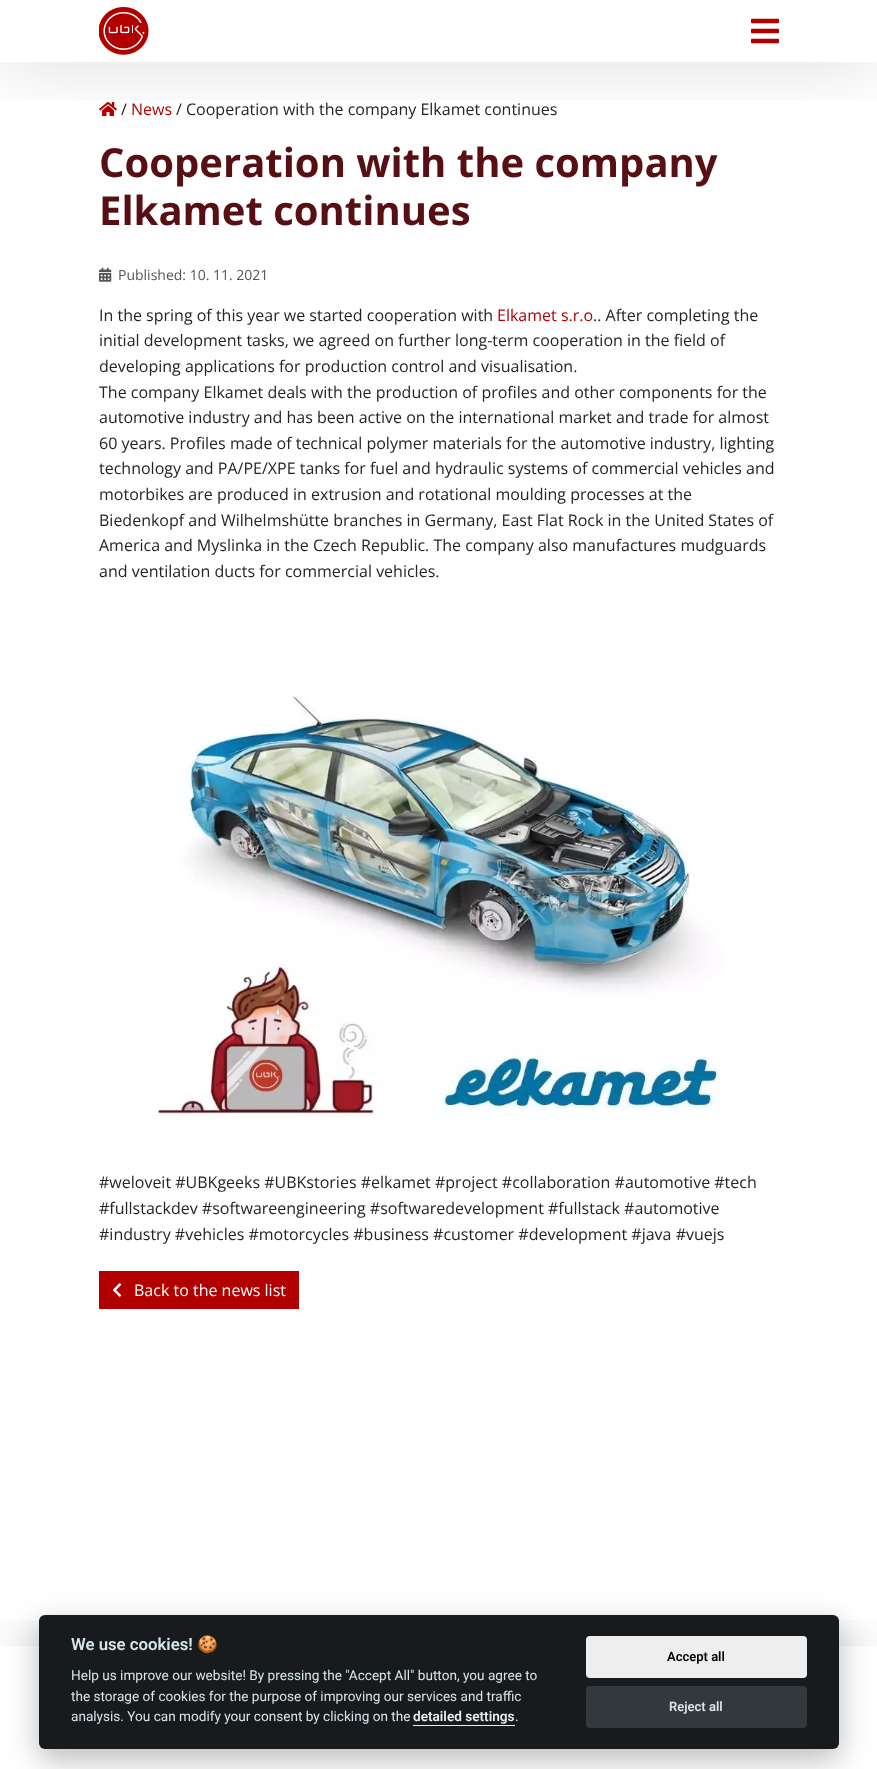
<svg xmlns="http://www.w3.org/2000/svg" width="877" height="1769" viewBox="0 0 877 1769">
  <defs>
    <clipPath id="clip1"><rect x="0" y="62" width="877" height="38"/></clipPath>
    <clipPath id="clip2"><rect x="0" y="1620" width="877" height="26"/></clipPath>
  </defs>
  <rect width="100%" height="100%" fill="rgb(255,255,255)"/>
  <image x="99" y="102" width="18" height="14" href="pic3.png"/>
  <g clip-path="url(#clip1)">
    <rect x="0" y="0" width="877" height="62" fill="rgba(0,0,0,0.14)" filter="blur(36px)"/>
  </g>
  <image x="99" y="7" width="50" height="48" href="pic1.png"/>
  <image x="751" y="18" width="28" height="26" href="pic2.png"/>
  <text x="121" y="115" font-family="Open Sans" font-size="16" fill="rgb(33,37,41)">/</text>
  <text x="131" y="115" font-family="Open Sans" font-size="16" fill="rgb(178,0,0)">News</text>
  <text x="176" y="115" font-family="Open Sans" font-size="16" fill="rgb(33,37,41)">/ Cooperation with the company Elkamet continues</text>
  <g font-family="Open Sans" font-size="40" font-weight="bold" fill="rgb(87,15,20)">
    <text>
      <tspan x="99" y="177">Cooperation with the company</tspan>
      <tspan x="99" y="225">Elkamet continues</tspan>
    </text>
  </g>
  <image x="99" y="267" width="13" height="15" href="pic4.png"/>
  <text x="118" y="280" font-family="Open Sans" font-size="14" fill="rgb(85,85,85)">Published: 10. 11. 2021</text>
  <text x="99" y="321" font-family="Open Sans" font-size="16" fill="rgb(33,37,41)">In the spring of this year we started cooperation with</text>
  <text x="497" y="321" font-family="Open Sans" font-size="16" fill="rgb(178,0,0)">Elkamet s.r.o</text>
  <g font-family="Open Sans" font-size="16" fill="rgb(33,37,41)">
    <text x="593" y="321">.. After completing the</text>
    <text>
      <tspan x="99" y="346">initial development tasks, we agreed on further long-term cooperation in the field of</tspan>
      <tspan x="99" y="372">developing applications for production control and visualisation.</tspan>
      <tspan x="99" y="398">The company Elkamet deals with the production of profiles and other components for the</tspan>
      <tspan x="99" y="423">automotive industry and has been active on the international market and trade for almost</tspan>
      <tspan x="99" y="449">60 years. Profiles made of technical polymer materials for the automotive industry, lighting</tspan>
      <tspan x="99" y="474">technology and PA/PE/XPE tanks for fuel and hydraulic systems of commercial vehicles and</tspan>
      <tspan x="99" y="500">motorbikes are produced in extrusion and rotational moulding processes at the</tspan>
      <tspan x="99" y="526">Biedenkopf and Wilhelmshütte branches in Germany, East Flat Rock in the United States of</tspan>
      <tspan x="99" y="551">America and Myslinka in the Czech Republic. The company also manufactures mudguards</tspan>
      <tspan x="99" y="577">and ventilation ducts for commercial vehicles.</tspan>
    </text>
  </g>
  <image x="155" y="695" width="569" height="422" href="pic5.png"/>
  <g font-family="Open Sans" font-size="16" fill="rgb(33,37,41)">
    <text>
      <tspan x="99" y="1188">#weloveit #UBKgeeks #UBKstories #elkamet #project #collaboration #automotive #tech</tspan>
      <tspan x="99" y="1214">#fullstackdev #softwareengineering #softwaredevelopment #fullstack #automotive</tspan>
      <tspan x="99" y="1240">#industry #vehicles #motorcycles #business #customer #development #java #vuejs</tspan>
    </text>
  </g>
  <rect x="99" y="1271" width="200" height="38" fill="rgb(178,0,0)"/>
  <image x="112" y="1283" width="10" height="14" href="pic6.png"/>
  <text x="134" y="1296" font-family="Open Sans" font-size="16" fill="rgb(255,255,255)">Back to the news list</text>
  <g clip-path="url(#clip2)">
    <rect x="0" y="1646" width="877" height="123" fill="rgba(0,0,0,0.1)" filter="blur(36px)"/>
  </g>
  <rect x="39" y="1625" width="800" height="134" rx="6" fill="rgba(2,2,3,0.28)" filter="blur(15px)"/>
  <rect x="39" y="1615" width="800" height="134" rx="6" fill="rgb(24,27,29)"/>
  <text x="71" y="1650" font-family="Roboto" font-size="16.75" font-weight="600" fill="rgb(216,229,234)">We use cookies!</text>
  <text x="197" y="1650" font-family="Noto Color Emoji" font-size="16.75" font-weight="bold" fill="rgb(216,229,234)">🍪</text>
  <g font-family="Roboto" font-size="13.6" fill="rgb(216,229,234)">
    <text>
      <tspan x="71" y="1680">Help us improve our website! By pressing the "Accept All" button, you agree to</tspan>
      <tspan x="71" y="1701">the storage of cookies for the purpose of improving our services and traffic</tspan>
      <tspan x="71" y="1721">analysis. You can modify your consent by clicking on the</tspan>
    </text>
  </g>
  <text x="413" y="1721" font-family="Roboto" font-size="13.6" font-weight="600" fill="rgb(238,238,238)">detailed settings</text>
  <rect x="413" y="1725" width="102" height="1" fill="rgb(238,238,238)"/>
  <text x="515" y="1721" font-family="Roboto" font-size="13.6" fill="rgb(216,229,234)">.</text>
  <rect x="586" y="1636" width="221" height="42" rx="4" fill="rgb(238,238,238)"/>
  <text x="667" y="1661" font-family="Roboto" font-size="13" font-weight="600" fill="rgb(0,0,0)">Accept all</text>
  <rect x="586" y="1686" width="221" height="42" rx="4" fill="rgb(51,56,60)"/>
  <text x="669" y="1711" font-family="Roboto" font-size="13" font-weight="600" fill="rgb(216,229,234)">Reject all</text>
</svg>
